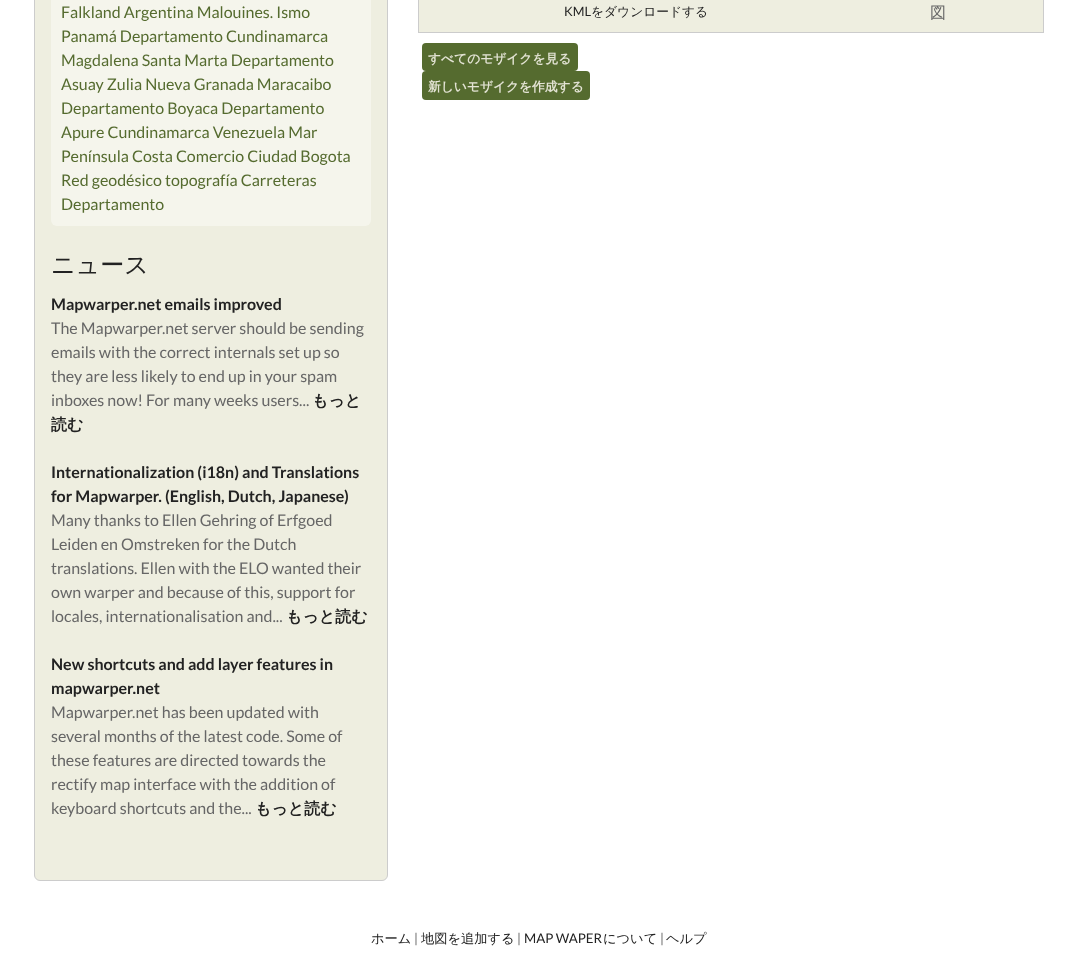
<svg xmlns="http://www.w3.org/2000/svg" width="1078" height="976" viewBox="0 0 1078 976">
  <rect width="100%" height="100%" fill="rgb(255,255,255)"/>
  <rect x="34.5" y="-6.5" width="353" height="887" rx="5.5" fill="rgb(238,238,224)" stroke="rgb(204,204,204)"/>
  <rect x="51" y="-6" width="320" height="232" rx="6" fill="rgb(245,245,236)"/>
  <g font-family="Lato" font-size="16" fill="rgb(85,107,47)">
    <text>
      <tspan x="61" y="18">Falkland Argentina Malouines. Ismo</tspan>
      <tspan x="61" y="42">Panamá Departamento Cundinamarca</tspan>
      <tspan x="61" y="66">Magdalena Santa Marta Departamento</tspan>
      <tspan x="61" y="90">Asuay Zulia Nueva Granada Maracaibo</tspan>
      <tspan x="61" y="114">Departamento Boyaca Departamento</tspan>
      <tspan x="61" y="138">Apure Cundinamarca Venezuela Mar</tspan>
      <tspan x="61" y="162">Península Costa Comercio Ciudad Bogota</tspan>
      <tspan x="61" y="186">Red geodésico topografía Carreteras</tspan>
      <tspan x="61" y="210">Departamento</tspan>
    </text>
  </g>
  <text x="51" y="273" font-family="WenQuanYi Zen Hei" font-size="24" font-weight="500" fill="rgb(34,34,34)">ニュース</text>
  <text x="51" y="310" font-family="Lato" font-size="16" font-weight="bold" fill="rgb(34,34,34)">Mapwarper.net emails improved</text>
  <g font-family="Lato" font-size="16" fill="rgb(102,102,102)">
    <text>
      <tspan x="51" y="334">The Mapwarper.net server should be sending</tspan>
      <tspan x="51" y="358">emails with the correct internals set up so</tspan>
      <tspan x="51" y="382">they are less likely to end up in your spam</tspan>
      <tspan x="51" y="406">inboxes now! For many weeks users...</tspan>
    </text>
  </g>
  <g font-family="WenQuanYi Zen Hei" font-size="16" font-weight="bold" fill="rgb(34,34,34)">
    <text x="312" y="406">もっと</text>
    <text x="51" y="430">読む</text>
  </g>
  <g font-family="Lato" font-size="16" font-weight="bold" fill="rgb(34,34,34)">
    <text>
      <tspan x="51" y="478">Internationalization (i18n) and Translations</tspan>
      <tspan x="51" y="502">for Mapwarper. (English, Dutch, Japanese)</tspan>
    </text>
  </g>
  <g font-family="Lato" font-size="16" fill="rgb(102,102,102)">
    <text>
      <tspan x="51" y="526">Many thanks to Ellen Gehring of Erfgoed</tspan>
      <tspan x="51" y="550">Leiden en Omstreken for the Dutch</tspan>
      <tspan x="51" y="574">translations. Ellen with the ELO wanted their</tspan>
      <tspan x="51" y="598">own warper and because of this, support for</tspan>
      <tspan x="51" y="622">locales, internationalisation and...</tspan>
    </text>
  </g>
  <text x="286" y="622" font-family="WenQuanYi Zen Hei" font-size="16" font-weight="bold" fill="rgb(34,34,34)">もっと読む</text>
  <g font-family="Lato" font-size="16" font-weight="bold" fill="rgb(34,34,34)">
    <text>
      <tspan x="51" y="670">New shortcuts and add layer features in</tspan>
      <tspan x="51" y="694">mapwarper.net</tspan>
    </text>
  </g>
  <g font-family="Lato" font-size="16" fill="rgb(102,102,102)">
    <text>
      <tspan x="51" y="718">Mapwarper.net has been updated with</tspan>
      <tspan x="51" y="742">several months of the latest code. Some of</tspan>
      <tspan x="51" y="766">these features are directed towards the</tspan>
      <tspan x="51" y="790">rectify map interface with the addition of</tspan>
      <tspan x="51" y="814">keyboard shortcuts and the...</tspan>
    </text>
  </g>
  <text x="255" y="814" font-family="WenQuanYi Zen Hei" font-size="16" font-weight="bold" fill="rgb(34,34,34)">もっと読む</text>
  <rect x="1043" y="0" width="1" height="33" fill="rgb(204,204,204)"/>
  <rect x="418" y="32" width="626" height="1" fill="rgb(204,204,204)"/>
  <rect x="418" y="0" width="1" height="33" fill="rgb(204,204,204)"/>
  <rect x="419" y="0" width="624" height="32" fill="rgb(238,238,224)"/>
  <text x="564" y="16" font-family="Lato" font-size="12.75" fill="rgb(34,34,34)">KML</text>
  <text x="591" y="16" font-family="WenQuanYi Zen Hei" font-size="12.75" font-weight="500" fill="rgb(34,34,34)">をダウンロードする</text>
  <text x="930" y="18" font-family="WenQuanYi Zen Hei" font-size="16" font-weight="500" fill="rgb(102,102,102)">図</text>
  <rect x="422" y="43" width="156" height="28" rx="4" fill="rgb(85,107,47)"/>
  <text x="428" y="63" font-family="WenQuanYi Zen Hei" font-size="12.75" font-weight="bold" fill="rgb(227,227,212)">すべてのモザイクを見る</text>
  <rect x="422" y="71" width="168" height="29" rx="4" fill="rgb(85,107,47)"/>
  <text x="428" y="91" font-family="WenQuanYi Zen Hei" font-size="12.75" font-weight="bold" fill="rgb(227,227,212)">新しいモザイクを作成する</text>
  <text x="371" y="943" font-family="WenQuanYi Zen Hei" font-size="13.25" font-weight="500" fill="rgb(34,34,34)">ホーム</text>
  <text x="414" y="943" font-family="Lato" font-size="13.25" fill="rgb(102,102,102)">|</text>
  <text x="421" y="943" font-family="WenQuanYi Zen Hei" font-size="13.25" font-weight="500" fill="rgb(34,34,34)">地図を追加する</text>
  <text x="517" y="943" font-family="Lato" font-size="13.25" fill="rgb(102,102,102)">|</text>
  <text x="524" y="943" font-family="Lato" font-size="13.25" fill="rgb(34,34,34)">MAP WAPER</text>
  <text x="603" y="943" font-family="WenQuanYi Zen Hei" font-size="13.25" font-weight="500" fill="rgb(34,34,34)">について</text>
  <text x="660" y="943" font-family="Lato" font-size="13.25" fill="rgb(102,102,102)">|</text>
  <text x="666" y="943" font-family="WenQuanYi Zen Hei" font-size="13.25" font-weight="500" fill="rgb(34,34,34)">ヘルプ</text>
</svg>
